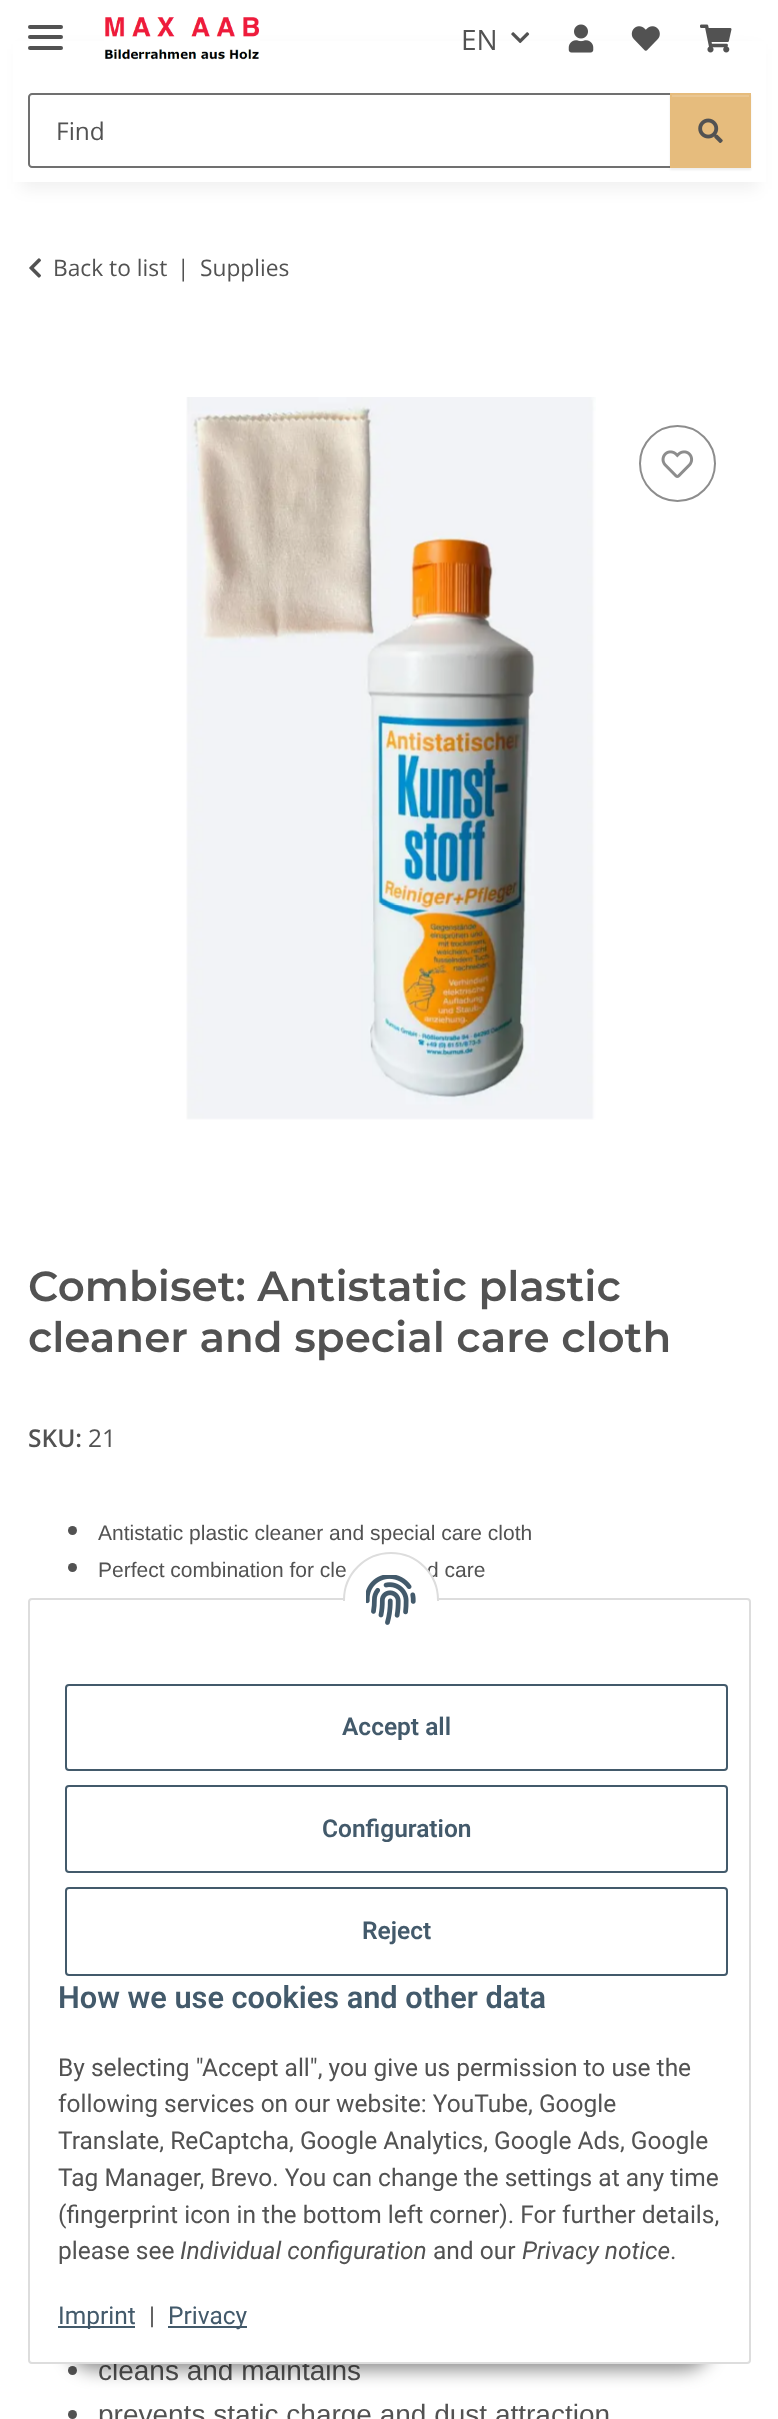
<svg xmlns="http://www.w3.org/2000/svg" width="778" height="2419" viewBox="0 0 778 2419">
  <rect width="100%" height="100%" fill="rgb(255,255,255)"/>
  <rect x="21" y="49" width="737" height="140" fill="rgba(0,0,0,0.06)" filter="blur(8px)"/>
  <rect x="13" y="41" width="753" height="141" fill="rgb(255,255,255)"/>
  <rect x="28" y="35" width="35" height="4" rx="2" fill="rgb(82,82,82)"/>
  <rect x="28" y="25" width="35" height="4" rx="2" fill="rgb(82,82,82)"/>
  <rect x="28" y="46" width="35" height="4" rx="2" fill="rgb(82,82,82)"/>
  <image x="104" y="17" width="156" height="43" href="pic1.png"/>
  <text x="461" y="50" font-family="Open Sans" font-size="28" fill="rgb(82,82,82)">EN</text>
  <image x="511" y="32" width="19" height="12" href="pic2.png"/>
  <image x="568" y="24" width="26" height="29" href="pic3.png"/>
  <image x="631" y="26" width="29" height="25" href="pic4.png"/>
  <image x="700" y="24" width="32" height="29" href="pic5.png"/>
  <path d="M32 94H671V167H32C30.5 167 29 165.5 29 164V97C29 95.5 30.5 94 32 94Z" fill="none" stroke="rgb(112,112,112)" stroke-width="2"/>
  <text x="56" y="140" font-family="Open Sans" font-size="24.5" fill="rgb(82,82,82)">Find</text>
  <rect x="670" y="95" width="81" height="75" fill="rgba(0,0,0,0.07)" filter="blur(1px)"/>
  <rect x="670" y="93" width="81" height="75" fill="rgb(230,188,125)"/>
  <rect x="672" y="95" width="77" height="2" fill="rgb(234,198,145)"/>
  <image x="698" y="118" width="25" height="25" href="pic6.png"/>
  <image x="29" y="258" width="12" height="20" href="pic7.png"/>
  <g font-family="Open Sans" font-size="22.75" fill="rgb(82,82,82)">
    <text x="53" y="276">Back to list</text>
    <text x="177" y="276">|</text>
    <text x="200" y="276">Supplies</text>
  </g>
  <image x="186" y="397" width="410" height="723" href="pic8.png"/>
  <circle cx="677.5" cy="463.5" r="37.5" fill="none" stroke="rgb(141,141,141)" stroke-width="2"/>
  <image x="661" y="450" width="33" height="28" href="pic9.png"/>
  <g font-family="Montserrat" font-size="42" font-weight="600" fill="rgb(82,82,82)">
    <text>
      <tspan x="28" y="1301">Combiset: Antistatic plastic</tspan>
      <tspan x="28" y="1352">cleaner and special care cloth</tspan>
    </text>
  </g>
  <text x="28" y="1447" font-family="Open Sans" font-size="24.5" font-weight="600" fill="rgb(82,82,82)">SKU:</text>
  <text x="88" y="1447" font-family="Open Sans" font-size="24.5" fill="rgb(82,82,82)">21</text>
  <circle cx="72.5" cy="1530.5" r="4.5" fill="rgb(82,82,82)"/>
  <text x="98" y="1540" font-family="Liberation Sans" font-size="21" fill="rgb(82,82,82)">Antistatic plastic cleaner and special care cloth</text>
  <circle cx="72.5" cy="1567.5" r="4.5" fill="rgb(82,82,82)"/>
  <g font-family="Liberation Sans" font-size="21" fill="rgb(82,82,82)">
    <text x="98" y="1577">Perfect combination for cle</text>
    <text x="427" y="1577">d care</text>
  </g>
  <circle cx="72.5" cy="2370.5" r="4.5" fill="rgb(82,82,82)"/>
  <text x="98" y="2380" font-family="Liberation Sans" font-size="28" fill="rgb(82,82,82)">cleans and maintains</text>
  <circle cx="72.5" cy="2414.5" r="4.5" fill="rgb(82,82,82)"/>
  <text x="98" y="2424" font-family="Liberation Sans" font-size="28" fill="rgb(82,82,82)">prevents static charge and dust attraction</text>
  <rect x="67" y="2314" width="645" height="56" rx="28" fill="rgba(0,0,0,0.45)" filter="blur(9px)"/>
  <rect x="29" y="1599" width="721" height="764" rx="3" fill="rgb(255,255,255)" stroke="rgb(221,221,221)" stroke-width="2"/>
  <rect x="344" y="1553" width="94" height="95" rx="47" fill="rgb(255,255,255)" stroke="rgb(221,221,221)" stroke-width="2"/>
  <rect x="343" y="1601" width="96" height="48" fill="rgb(255,255,255)"/>
  <image x="366" y="1575" width="50" height="50" href="pic10.png"/>
  <rect x="66" y="1685" width="661" height="85" rx="3" fill="none" stroke="rgb(67,90,107)" stroke-width="2"/>
  <text x="342" y="1735" font-family="Roboto" font-size="24.5" font-weight="600" fill="rgb(67,90,107)">Accept all</text>
  <rect x="66" y="1786" width="661" height="86" rx="3" fill="none" stroke="rgb(67,90,107)" stroke-width="2"/>
  <text x="322" y="1837" font-family="Roboto" font-size="24.5" font-weight="600" fill="rgb(67,90,107)">Configuration</text>
  <rect x="66" y="1888" width="661" height="87" rx="3" fill="none" stroke="rgb(67,90,107)" stroke-width="2"/>
  <text x="362" y="1939" font-family="Roboto" font-size="24.5" font-weight="600" fill="rgb(67,90,107)">Reject</text>
  <text x="58" y="2008" font-family="Roboto" font-size="30.75" font-weight="600" fill="rgb(67,90,107)">How we use cookies and other data</text>
  <g font-family="Roboto" font-size="24.5" fill="rgb(82,82,82)">
    <text>
      <tspan x="58" y="2076">By selecting "Accept all", you give us permission to use the</tspan>
      <tspan x="58" y="2112">following services on our website: YouTube, Google</tspan>
      <tspan x="58" y="2149">Translate, ReCaptcha, Google Analytics, Google Ads, Google</tspan>
      <tspan x="58" y="2186">Tag Manager, Brevo. You can change the settings at any time</tspan>
      <tspan x="58" y="2223">(fingerprint icon in the bottom left corner). For further details,</tspan>
      <tspan x="58" y="2259">please see</tspan>
    </text>
  </g>
  <text x="180" y="2259" font-family="Roboto" font-size="24.5" font-style="italic" fill="rgb(82,82,82)">Individual configuration</text>
  <text x="433" y="2259" font-family="Roboto" font-size="24.5" fill="rgb(82,82,82)">and our</text>
  <text x="522" y="2259" font-family="Roboto" font-size="24.5" font-style="italic" fill="rgb(82,82,82)">Privacy notice</text>
  <text x="670" y="2259" font-family="Roboto" font-size="24.5" fill="rgb(82,82,82)">.</text>
  <rect x="58" y="2326" width="77" height="2" fill="rgb(67,90,107)"/>
  <text x="58" y="2324" font-family="Roboto" font-size="24.5" fill="rgb(67,90,107)">Imprint</text>
  <text x="149" y="2324" font-family="Roboto" font-size="24.5" fill="rgb(82,82,82)">|</text>
  <rect x="168" y="2326" width="79" height="2" fill="rgb(67,90,107)"/>
  <text x="168" y="2324" font-family="Roboto" font-size="24.5" fill="rgb(67,90,107)">Privacy</text>
</svg>
